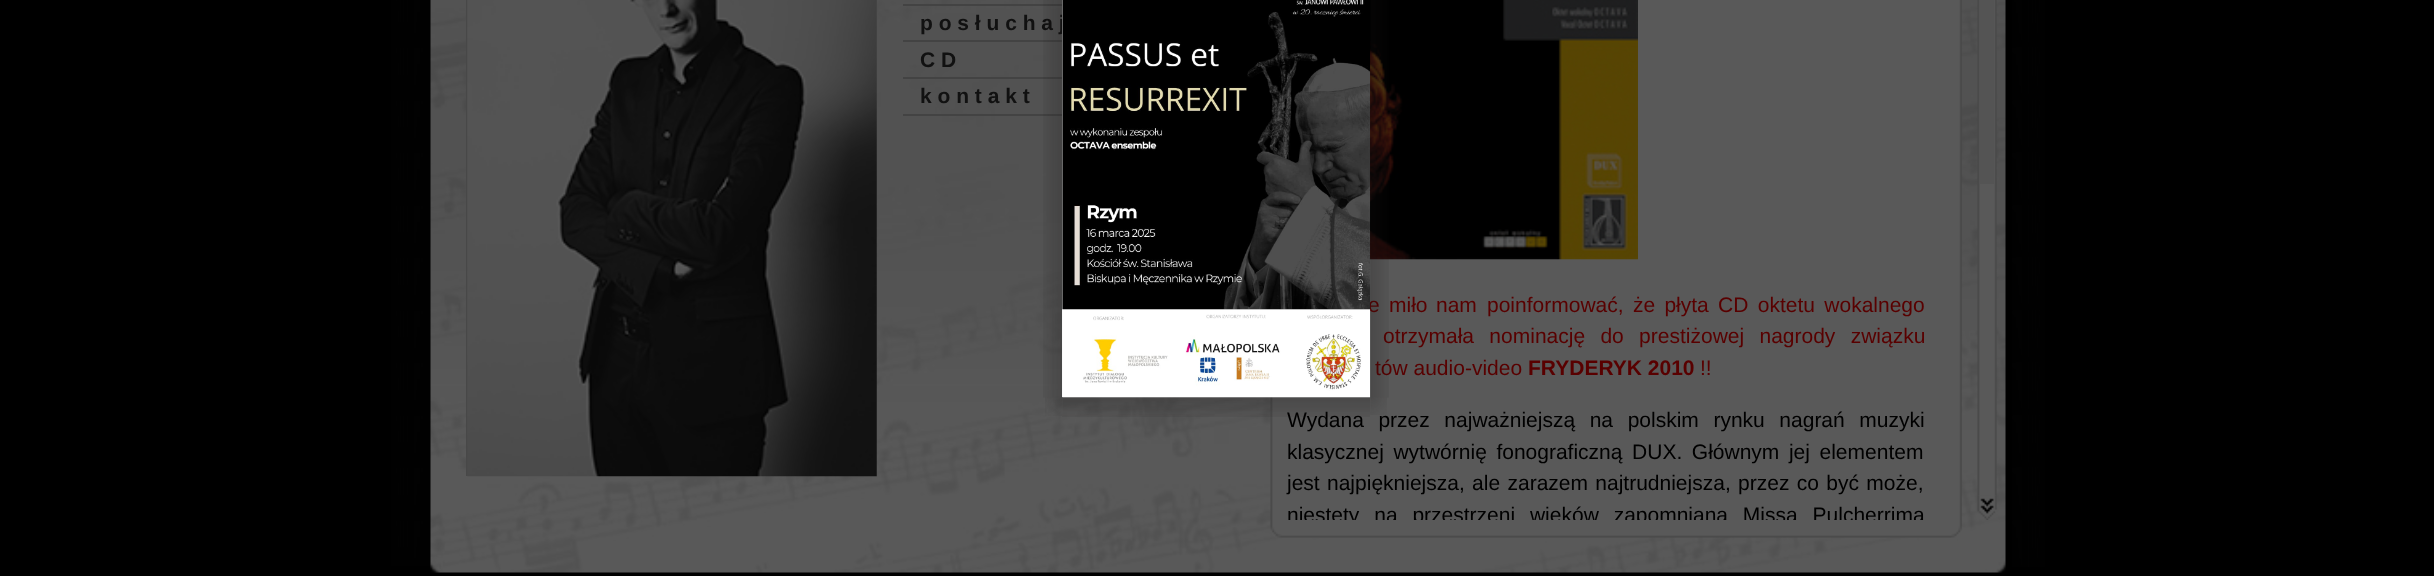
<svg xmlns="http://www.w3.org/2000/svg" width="2434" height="576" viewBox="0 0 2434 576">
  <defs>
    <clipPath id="clip1"><rect x="466" y="0" width="411" height="476"/></clipPath>
    <clipPath id="clip2"><rect x="1262" y="0" width="735" height="520"/></clipPath>
  </defs>
  <rect width="100%" height="100%" fill="rgb(0,0,0)"/>
  <image x="391" y="0" width="40" height="566" href="pic7.png"/>
  <image x="430" y="0" width="1576" height="573" href="pic8.png"/>
  <text x="920" y="30" font-family="Liberation Sans" font-size="21" font-weight="bold" fill="rgb(17,17,17)">p o s ł u c h a j</text>
  <rect x="1062" y="0" width="1" height="397" fill="rgb(255,255,255)"/>
  <image x="1045" y="397" width="17" height="19" href="pic4.png"/>
  <image x="1270" y="0" width="692" height="520" href="pic10.png"/>
  <text x="1287" y="427" word-spacing="8.75" font-family="Liberation Sans" font-size="21" fill="rgb(0,0,0)">Wydana przez najważniejszą na polskim rynku nagrań muzyki</text>
  <image x="1062" y="397" width="308" height="20" href="pic5.png"/>
  <rect x="903" y="4" width="159" height="2" fill="rgb(67,67,67)"/>
  <rect x="903" y="40" width="159" height="2" fill="rgb(67,67,67)"/>
  <rect x="903" y="77" width="159" height="2" fill="rgb(67,67,67)"/>
  <rect x="903" y="114" width="159" height="2" fill="rgb(67,67,67)"/>
  <image x="1043" y="0" width="20" height="398" href="pic1.png"/>
  <image x="1370" y="0" width="268" height="260" href="pic11.png"/>
  <g font-family="Liberation Sans" font-size="21" fill="rgb(89,0,0)">
    <text x="1368" y="312" word-spacing="3.5">e miło</text>
    <text x="1383" y="343" word-spacing="9.5">otrzymała nominację do prestiżowej nagrody związku</text>
    <text x="1375" y="375">tów audio-video</text>
  </g>
  <image x="1370" y="0" width="19" height="398" href="pic3.png"/>
  <image x="1370" y="397" width="17" height="18" href="pic6.png"/>
  <image x="1062" y="0" width="309" height="398" href="pic2.png"/>
  <g clip-path="url(#clip1)">
    <rect x="467" y="-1" width="426" height="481" fill="none" stroke="rgb(72,72,72)" stroke-width="2"/>
  </g>
  <image x="467" y="0" width="410" height="477" href="pic9.png"/>
  <g font-family="Liberation Sans" font-size="21" font-weight="bold" fill="rgb(17,17,17)">
    <text>
      <tspan x="920" y="67">C D</tspan>
      <tspan x="920" y="103">k o n t a k t</tspan>
    </text>
  </g>
  <g font-family="Liberation Sans" font-size="21" fill="rgb(89,0,0)">
    <text x="1436" y="312">nam</text>
    <text x="1487" y="312" word-spacing="3.5">poinformować, że płyta CD oktetu wokalnego</text>
  </g>
  <text x="1528" y="375" font-family="Liberation Sans" font-size="21" font-weight="bold" fill="rgb(89,0,0)">FRYDERYK 2010</text>
  <text x="1700" y="375" font-family="Liberation Sans" font-size="21" fill="rgb(89,0,0)">!!</text>
  <g font-family="Liberation Sans" font-size="21" fill="rgb(0,0,0)">
    <text>
      <tspan x="1287" y="459" word-spacing="3.75">klasycznej wytwórnię fonograficzną DUX. Głównym jej elementem</tspan>
      <tspan x="1287" y="490" word-spacing="1.5">jest najpiękniejsza, ale zarazem najtrudniejsza, przez co być może,</tspan>
    </text>
  </g>
  <g clip-path="url(#clip2)">
    <text x="1287" y="522" word-spacing="9" font-family="Liberation Sans" font-size="21" fill="rgb(0,0,0)">niestety na przestrzeni wieków zapomniana Missa Pulcherrima</text>
  </g>
  <image x="1977" y="0" width="20" height="496" href="pic12.png"/>
  <rect x="1980" y="0" width="14" height="184" fill="rgb(84,84,84)"/>
  <image x="1977" y="495" width="20" height="25" href="pic13.png"/>
  <image x="1270" y="520" width="692" height="18" href="pic14.png"/>
  <image x="2012" y="0" width="33" height="567" href="pic15.png"/>
</svg>
